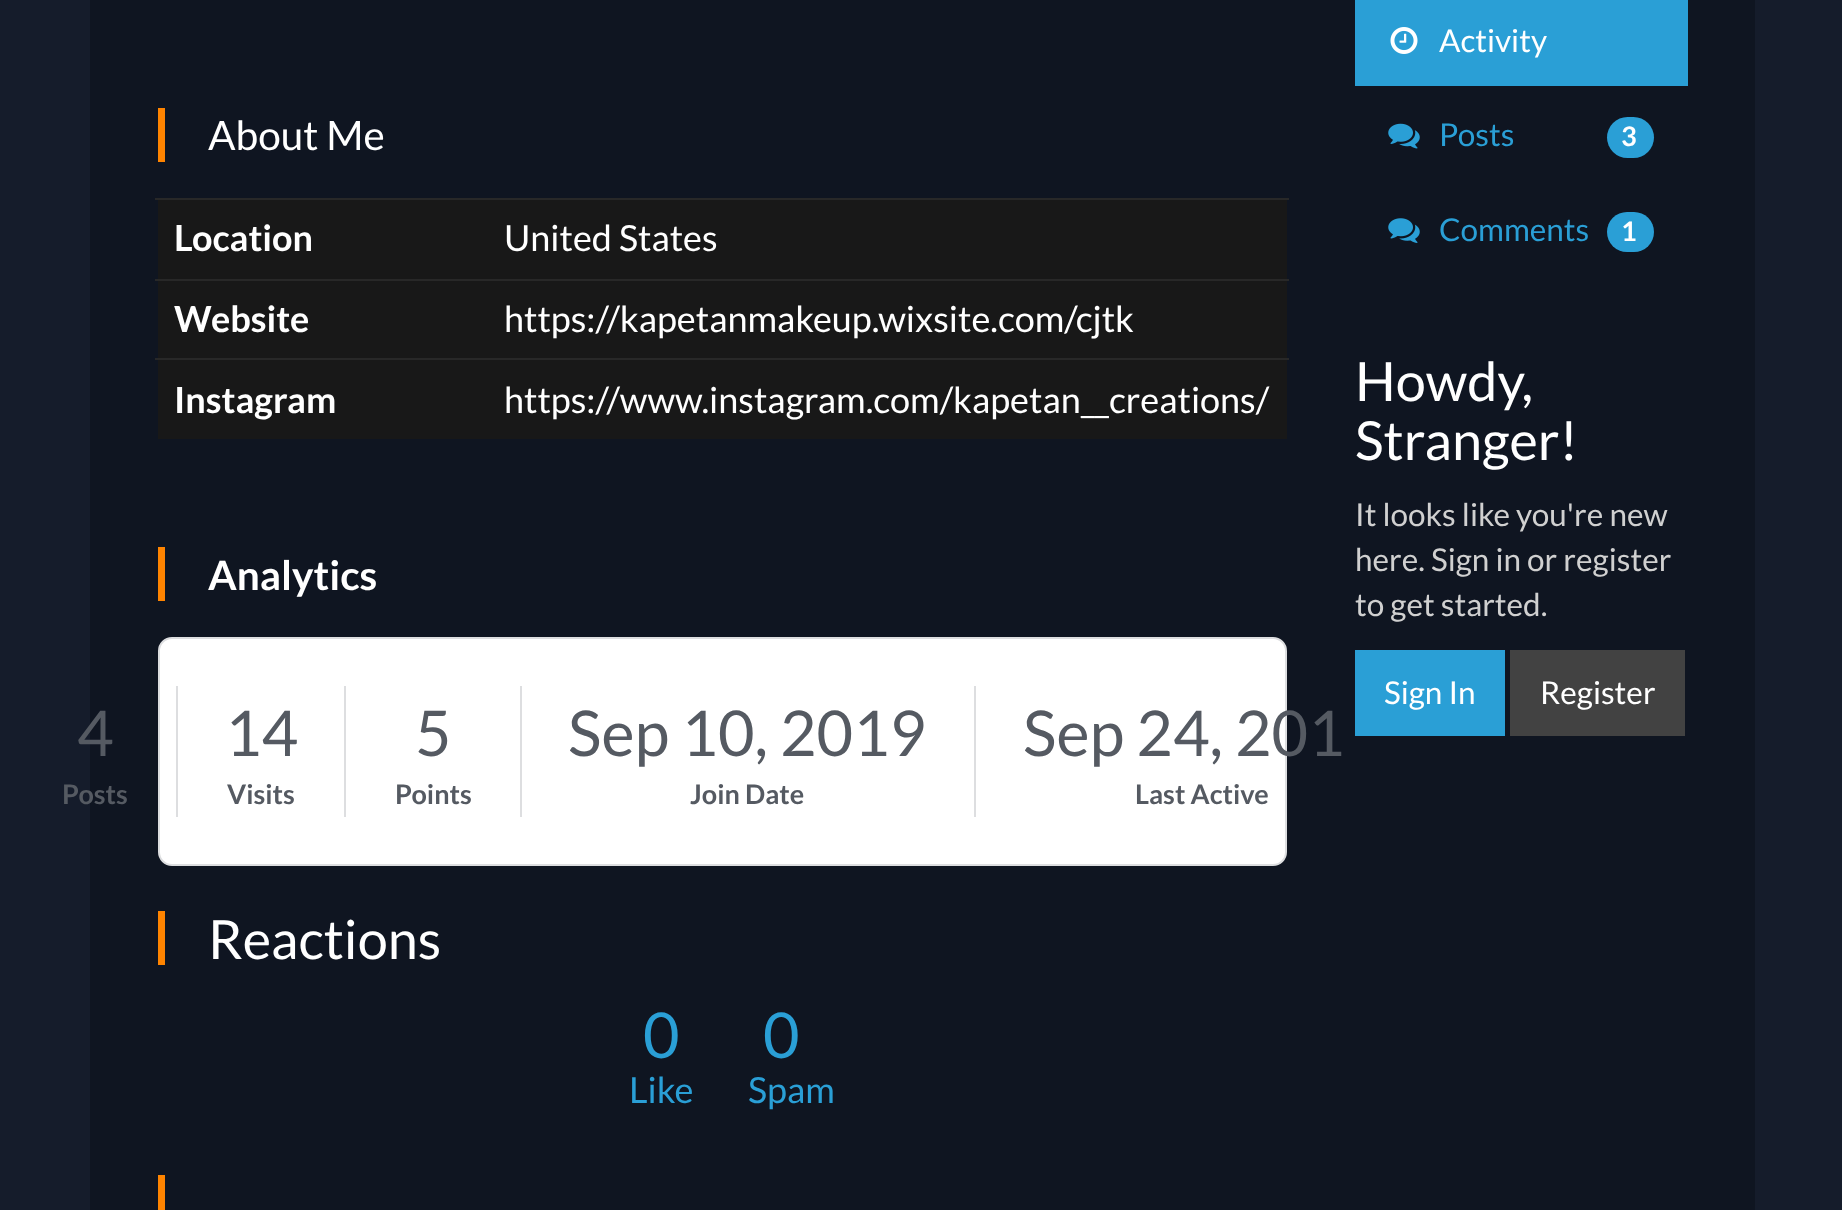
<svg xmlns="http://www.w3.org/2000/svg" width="1842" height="1210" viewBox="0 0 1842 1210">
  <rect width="100%" height="100%" fill="rgb(21,28,43)"/>
  <rect x="90" y="0" width="1665" height="1210" fill="rgb(15,21,33)"/>
  <rect x="158" y="108" width="7" height="54" fill="rgb(255,132,0)"/>
  <text x="208" y="150" font-family="Lato" font-size="40.5" fill="rgb(255,255,255)">About Me</text>
  <rect x="158" y="200" width="1129" height="239" fill="rgb(24,24,24)"/>
  <text x="174" y="251" font-family="Lato" font-size="36" font-weight="bold" fill="rgb(255,255,255)">Location</text>
  <rect x="155" y="198" width="1134" height="2" fill="rgb(40,40,40)"/>
  <text x="504" y="251" font-family="Lato" font-size="36" fill="rgb(255,255,255)">United States</text>
  <text x="174" y="332" font-family="Lato" font-size="36" font-weight="bold" fill="rgb(255,255,255)">Website</text>
  <rect x="155" y="279" width="1134" height="2" fill="rgb(40,40,40)"/>
  <text x="504" y="332" font-family="Lato" font-size="36" fill="rgb(255,255,255)">https://kapetanmakeup.wixsite.com/cjtk</text>
  <text x="174" y="413" font-family="Lato" font-size="36" font-weight="bold" fill="rgb(255,255,255)">Instagram</text>
  <rect x="155" y="358" width="1134" height="2" fill="rgb(40,40,40)"/>
  <text x="504" y="413" font-family="Lato" font-size="36" fill="rgb(255,255,255)">https://www.instagram.com/kapetan__creations/</text>
  <rect x="158" y="547" width="7" height="54" fill="rgb(255,132,0)"/>
  <text x="208" y="590" font-family="Lato" font-size="40.5" font-weight="bold" fill="rgb(255,255,255)">Analytics</text>
  <rect x="159" y="638" width="1127" height="227" rx="13" fill="rgb(255,255,255)" stroke="rgb(221,222,224)" stroke-width="2"/>
  <rect x="176" y="686" width="2" height="131" fill="rgb(221,222,224)"/>
  <text x="77" y="756" font-family="Lato" font-size="63" fill="rgb(85,90,98)">4</text>
  <text x="62" y="804" font-family="Lato" font-size="27" font-weight="bold" fill="rgb(85,90,98)">Posts</text>
  <rect x="344" y="686" width="2" height="131" fill="rgb(221,222,224)"/>
  <text x="225" y="756" font-family="Lato" font-size="63" fill="rgb(85,90,98)">14</text>
  <text x="227" y="804" font-family="Lato" font-size="27" font-weight="bold" fill="rgb(85,90,98)">Visits</text>
  <rect x="520" y="686" width="2" height="131" fill="rgb(221,222,224)"/>
  <text x="415" y="756" font-family="Lato" font-size="63" fill="rgb(85,90,98)">5</text>
  <text x="395" y="804" font-family="Lato" font-size="27" font-weight="bold" fill="rgb(85,90,98)">Points</text>
  <rect x="974" y="686" width="2" height="131" fill="rgb(221,222,224)"/>
  <text x="568" y="756" font-family="Lato" font-size="63" fill="rgb(85,90,98)">Sep 10, 2019</text>
  <text x="690" y="804" font-family="Lato" font-size="27" font-weight="bold" fill="rgb(85,90,98)">Join Date</text>
  <text x="1023" y="756" font-family="Lato" font-size="63" fill="rgb(85,90,98)">Sep 24, 201</text>
  <text x="1135" y="804" font-family="Lato" font-size="27" font-weight="bold" fill="rgb(85,90,98)">Last Active</text>
  <rect x="158" y="911" width="7" height="54" fill="rgb(255,132,0)"/>
  <text x="208" y="959" font-family="Lato" font-size="54" fill="rgb(255,255,255)">Reactions</text>
  <text x="643" y="1058" font-family="Lato" font-size="63" fill="rgb(42,159,214)">0</text>
  <text x="629" y="1103" font-family="Lato" font-size="36" fill="rgb(42,159,214)">Like</text>
  <text x="763" y="1058" font-family="Lato" font-size="63" fill="rgb(42,159,214)">0</text>
  <text x="748" y="1103" font-family="Lato" font-size="36" fill="rgb(42,159,214)">Spam</text>
  <rect x="158" y="1175" width="7" height="35" fill="rgb(255,132,0)"/>
  <rect x="1355" y="0" width="333" height="86" fill="rgb(42,159,214)"/>
  <image x="1390" y="27" width="28" height="27" href="pic1.png"/>
  <text x="1439" y="52" font-family="Lato" font-size="31.5" fill="rgb(255,255,255)">Activity</text>
  <image x="1388" y="123" width="32" height="26" href="pic2.png"/>
  <text x="1439" y="146" font-family="Lato" font-size="31.5" fill="rgb(42,159,214)">Posts</text>
  <rect x="1607" y="117" width="47" height="41" rx="20.5" fill="rgb(42,159,214)"/>
  <text x="1621" y="146" font-family="Lato" font-size="27" font-weight="bold" fill="rgb(255,255,255)">3</text>
  <image x="1388" y="218" width="32" height="25" href="pic3.png"/>
  <text x="1439" y="241" font-family="Lato" font-size="31.5" fill="rgb(42,159,214)">Comments</text>
  <rect x="1607" y="212" width="47" height="40" rx="20" fill="rgb(42,159,214)"/>
  <text x="1621" y="241" font-family="Lato" font-size="27" font-weight="bold" fill="rgb(255,255,255)">1</text>
  <g font-family="Lato" font-size="54" fill="rgb(255,255,255)">
    <text>
      <tspan x="1355" y="401">Howdy,</tspan>
      <tspan x="1355" y="460">Stranger!</tspan>
    </text>
  </g>
  <g font-family="Lato" font-size="31.5" fill="rgb(208,208,208)">
    <text>
      <tspan x="1355" y="526">It looks like you're new</tspan>
      <tspan x="1355" y="571">here. Sign in or register</tspan>
      <tspan x="1355" y="616">to get started.</tspan>
    </text>
  </g>
  <rect x="1355" y="650" width="150" height="86" fill="rgb(42,159,214)"/>
  <text x="1384" y="704" font-family="Lato" font-size="31.5" fill="rgb(255,255,255)">Sign In</text>
  <rect x="1510" y="650" width="175" height="86" fill="rgb(66,66,66)"/>
  <text x="1540" y="704" font-family="Lato" font-size="31.5" fill="rgb(255,255,255)">Register</text>
</svg>
